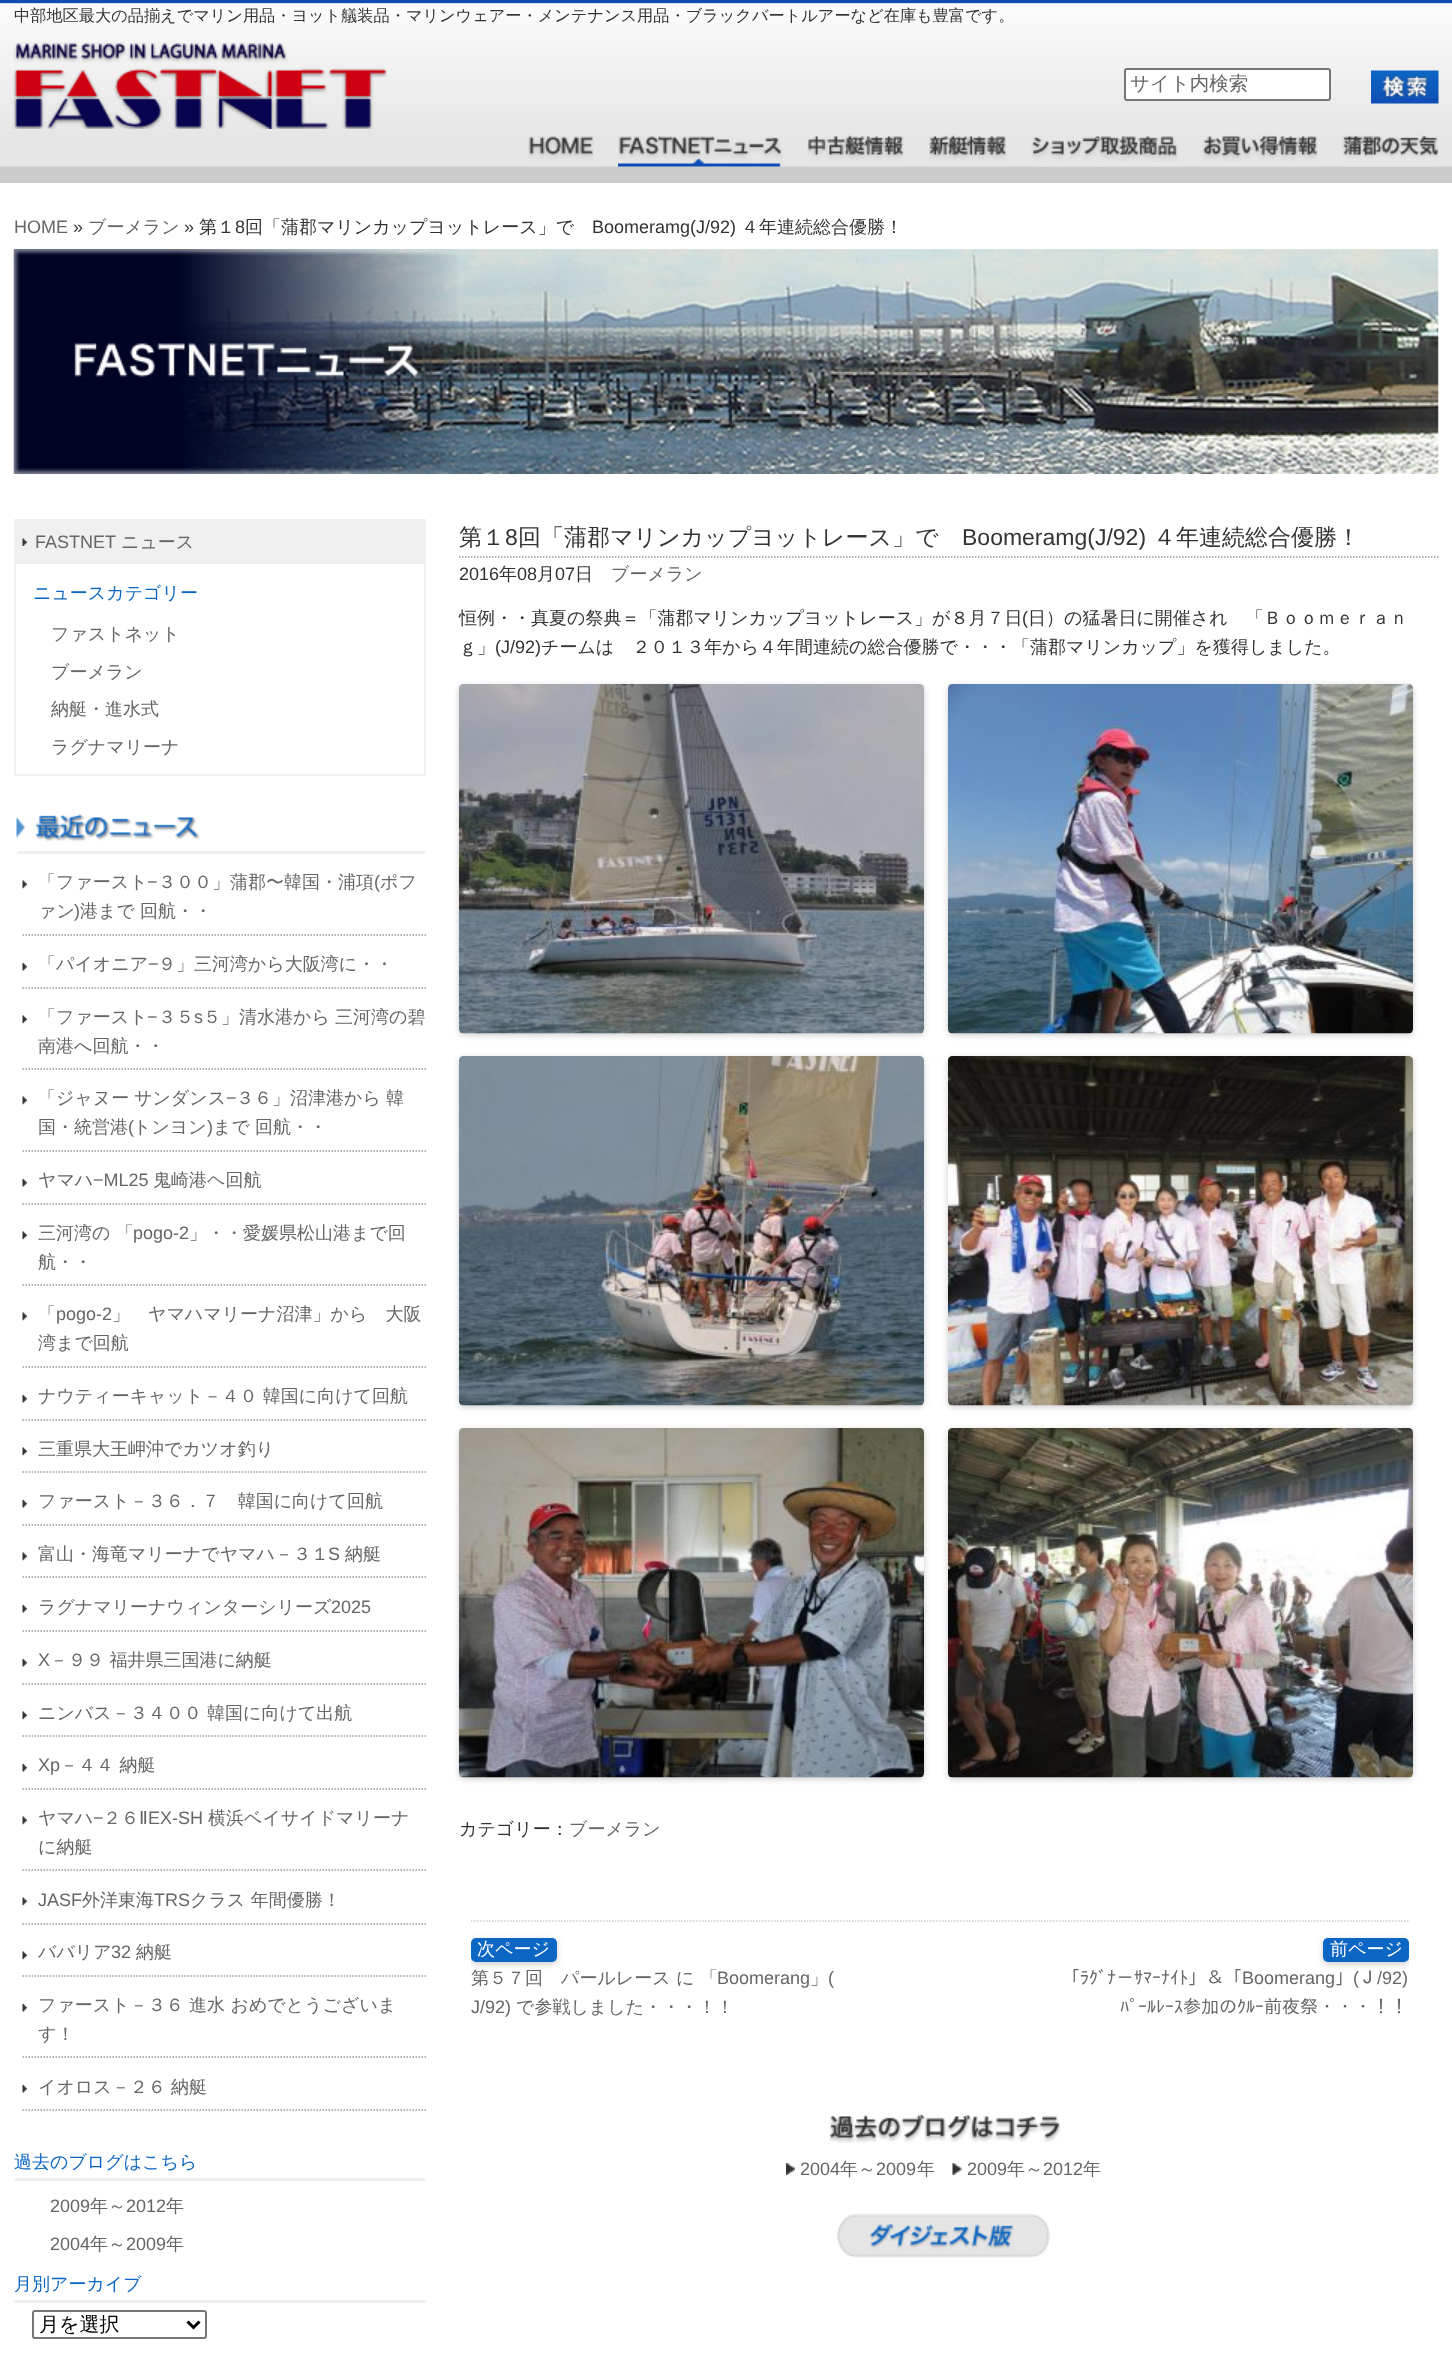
<svg xmlns="http://www.w3.org/2000/svg" width="1452" height="2365" viewBox="0 0 1452 2365">
  <defs>
    <clipPath id="clip1"><rect x="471" y="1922" width="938" height="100"/></clipPath>
  </defs>
  <rect width="100%" height="100%" fill="rgb(255,255,255)"/>
  <image x="0" y="3" width="1452" height="180" href="pic1.png"/>
  <rect x="0" y="0" width="1452" height="3" fill="rgb(13,76,181)"/>
  <text x="14" y="21" font-family="WenQuanYi Zen Hei" font-size="16.2" font-weight="500" fill="rgb(51,51,51)">中部地区最大の品揃えでマリン用品・ヨット艤装品・マリンウェアー・メンテナンス用品・ブラックバートルアーなど在庫も豊富です。</text>
  <image x="13" y="42" width="374" height="87" href="pic2.png"/>
  <rect x="1125" y="69" width="205" height="31" rx="2" fill="rgb(255,255,255)" stroke="rgb(118,118,118)" stroke-width="2"/>
  <text x="1130" y="90" font-family="WenQuanYi Zen Hei" font-size="19.5" font-weight="500" fill="rgb(102,102,102)">サイト内検索</text>
  <image x="1371" y="70" width="68" height="34" href="pic3.png"/>
  <image x="528" y="136" width="66" height="31" href="pic4.png"/>
  <image x="618" y="136" width="165" height="31" href="pic5.png"/>
  <image x="807" y="135" width="97" height="32" href="pic6.png"/>
  <image x="928" y="135" width="79" height="32" href="pic7.png"/>
  <image x="1031" y="136" width="147" height="31" href="pic8.png"/>
  <image x="1202" y="135" width="116" height="32" href="pic9.png"/>
  <image x="1342" y="135" width="97" height="32" href="pic10.png"/>
  <text x="14" y="233" font-family="Liberation Sans" font-size="18" fill="rgb(102,102,102)">HOME</text>
  <text x="73" y="233" font-family="Liberation Sans" font-size="18" fill="rgb(51,51,51)">»</text>
  <text x="88" y="233" font-family="WenQuanYi Zen Hei" font-size="18" font-weight="500" fill="rgb(102,102,102)">ブーメラン</text>
  <text x="184" y="233" font-family="Liberation Sans" font-size="18" fill="rgb(51,51,51)">»</text>
  <text x="199" y="233" font-family="WenQuanYi Zen Hei" font-size="18" font-weight="500" fill="rgb(51,51,51)">第１</text>
  <text x="235" y="233" font-family="Liberation Sans" font-size="18" fill="rgb(51,51,51)">8</text>
  <text x="245" y="233" font-family="WenQuanYi Zen Hei" font-size="18" font-weight="500" fill="rgb(51,51,51)">回「蒲郡マリンカップヨットレース」で</text>
  <text x="592" y="233" font-family="Liberation Sans" font-size="18" fill="rgb(51,51,51)">Boomeramg(J/92)</text>
  <text x="741" y="233" font-family="WenQuanYi Zen Hei" font-size="18" font-weight="500" fill="rgb(51,51,51)">４年連続総合優勝！</text>
  <image x="13" y="249" width="1426" height="225" href="pic11.png"/>
  <rect x="15" y="520" width="410" height="255" fill="none" stroke="rgb(240,240,240)" stroke-width="2"/>
  <rect x="16" y="521" width="408" height="43" fill="rgb(240,240,240)"/>
  <image x="22" y="538" width="5" height="8" href="pic12.png"/>
  <text x="35" y="548" font-family="Liberation Sans" font-size="18" fill="rgb(102,102,102)">FASTNET</text>
  <text x="121" y="548" font-family="WenQuanYi Zen Hei" font-size="18" font-weight="500" fill="rgb(102,102,102)">ニュース</text>
  <text x="33" y="599" font-family="WenQuanYi Zen Hei" font-size="18" font-weight="500" fill="rgb(12,102,195)">ニュースカテゴリー</text>
  <g font-family="WenQuanYi Zen Hei" font-size="18" font-weight="500" fill="rgb(102,102,102)">
    <text x="51" y="640">ファストネット</text>
    <text x="51" y="678">ブーメラン</text>
    <text x="51" y="715">納艇・進水式</text>
    <text x="51" y="753">ラグナマリーナ</text>
  </g>
  <rect x="17" y="851" width="409" height="3" fill="rgb(240,240,240)"/>
  <image x="16" y="814" width="184" height="28" href="pic13.png"/>
  <image x="22" y="880" width="5" height="9" href="pic14.png"/>
  <path d="M22.5 935H426" fill="none" stroke="rgb(153,153,153)" stroke-width="1.5" stroke-dasharray="1.5 1.5"/>
  <text x="38" y="888" font-family="WenQuanYi Zen Hei" font-size="18" font-weight="500" fill="rgb(102,102,102)">「ファースト</text>
  <text x="147" y="888" font-family="Liberation Sans" font-size="18" fill="rgb(102,102,102)">−</text>
  <text x="158" y="888" font-family="WenQuanYi Zen Hei" font-size="18" font-weight="500" fill="rgb(102,102,102)">３００」蒲郡〜韓国・浦項</text>
  <text x="374" y="888" font-family="Liberation Sans" font-size="18" fill="rgb(102,102,102)">(</text>
  <g font-family="WenQuanYi Zen Hei" font-size="18" font-weight="500" fill="rgb(102,102,102)">
    <text x="380" y="888">ポフ</text>
    <text x="38" y="917">ァン</text>
  </g>
  <text x="74" y="917" font-family="Liberation Sans" font-size="18" fill="rgb(102,102,102)">)</text>
  <g font-family="WenQuanYi Zen Hei" font-size="18" font-weight="500" fill="rgb(102,102,102)">
    <text x="80" y="917">港まで</text>
    <text x="140" y="917">回航・・</text>
  </g>
  <image x="22" y="963" width="5" height="8" href="pic15.png"/>
  <path d="M22.5 988H426" fill="none" stroke="rgb(153,153,153)" stroke-width="1.5" stroke-dasharray="1.5 1.5"/>
  <text x="38" y="970" font-family="WenQuanYi Zen Hei" font-size="18" font-weight="500" fill="rgb(102,102,102)">「パイオニア</text>
  <text x="148" y="970" font-family="Liberation Sans" font-size="18" fill="rgb(102,102,102)">−</text>
  <text x="158" y="970" font-family="WenQuanYi Zen Hei" font-size="18" font-weight="500" fill="rgb(102,102,102)">９」三河湾から大阪湾に・・</text>
  <image x="22" y="1015" width="5" height="9" href="pic14.png"/>
  <path d="M22.5 1069H426" fill="none" stroke="rgb(153,153,153)" stroke-width="1.5" stroke-dasharray="1.5 1.5"/>
  <text x="38" y="1023" font-family="WenQuanYi Zen Hei" font-size="18" font-weight="500" fill="rgb(102,102,102)">「ファースト</text>
  <text x="147" y="1023" font-family="Liberation Sans" font-size="18" fill="rgb(102,102,102)">−</text>
  <text x="158" y="1023" font-family="WenQuanYi Zen Hei" font-size="18" font-weight="500" fill="rgb(102,102,102)">３５</text>
  <text x="194" y="1023" font-family="Liberation Sans" font-size="18" fill="rgb(102,102,102)">s</text>
  <g font-family="WenQuanYi Zen Hei" font-size="18" font-weight="500" fill="rgb(102,102,102)">
    <text x="203" y="1023">５」清水港から</text>
    <text x="335" y="1023">三河湾の碧</text>
    <text x="38" y="1052">南港へ回航・・</text>
  </g>
  <image x="22" y="1096" width="5" height="9" href="pic14.png"/>
  <path d="M22.5 1151H426" fill="none" stroke="rgb(153,153,153)" stroke-width="1.5" stroke-dasharray="1.5 1.5"/>
  <g font-family="WenQuanYi Zen Hei" font-size="18" font-weight="500" fill="rgb(102,102,102)">
    <text x="38" y="1104">「ジャヌー</text>
    <text x="134" y="1104">サンダンス</text>
  </g>
  <text x="226" y="1104" font-family="Liberation Sans" font-size="18" fill="rgb(102,102,102)">−</text>
  <g font-family="WenQuanYi Zen Hei" font-size="18" font-weight="500" fill="rgb(102,102,102)">
    <text x="236" y="1104">３６」沼津港から</text>
    <text x="386" y="1104">韓</text>
    <text x="38" y="1133">国・統営港</text>
  </g>
  <text x="128" y="1133" font-family="Liberation Sans" font-size="18" fill="rgb(102,102,102)">(</text>
  <text x="133" y="1133" font-family="WenQuanYi Zen Hei" font-size="18" font-weight="500" fill="rgb(102,102,102)">トンヨン</text>
  <text x="207" y="1133" font-family="Liberation Sans" font-size="18" fill="rgb(102,102,102)">)</text>
  <g font-family="WenQuanYi Zen Hei" font-size="18" font-weight="500" fill="rgb(102,102,102)">
    <text x="213" y="1133">まで</text>
    <text x="255" y="1133">回航・・</text>
  </g>
  <image x="22" y="1179" width="5" height="8" href="pic15.png"/>
  <path d="M22.5 1204H426" fill="none" stroke="rgb(153,153,153)" stroke-width="1.5" stroke-dasharray="1.5 1.5"/>
  <text x="38" y="1186" font-family="WenQuanYi Zen Hei" font-size="18" font-weight="500" fill="rgb(102,102,102)">ヤマハ</text>
  <text x="93" y="1186" font-family="Liberation Sans" font-size="18" fill="rgb(102,102,102)">−ML25</text>
  <text x="153" y="1186" font-family="WenQuanYi Zen Hei" font-size="18" font-weight="500" fill="rgb(102,102,102)">鬼崎港ヘ回航</text>
  <image x="22" y="1231" width="5" height="9" href="pic14.png"/>
  <path d="M22.5 1285H426" fill="none" stroke="rgb(153,153,153)" stroke-width="1.5" stroke-dasharray="1.5 1.5"/>
  <text x="38" y="1239" font-family="WenQuanYi Zen Hei" font-size="18" font-weight="500" fill="rgb(102,102,102)">三河湾の 「</text>
  <text x="133" y="1239" font-family="Liberation Sans" font-size="18" fill="rgb(102,102,102)">pogo-2</text>
  <g font-family="WenQuanYi Zen Hei" font-size="18" font-weight="500" fill="rgb(102,102,102)">
    <text x="189" y="1239">」・・愛媛県松山港まで回</text>
    <text x="38" y="1268">航・・</text>
  </g>
  <image x="22" y="1312" width="5" height="9" href="pic14.png"/>
  <path d="M22.5 1367H426" fill="none" stroke="rgb(153,153,153)" stroke-width="1.5" stroke-dasharray="1.5 1.5"/>
  <text x="38" y="1320" font-family="WenQuanYi Zen Hei" font-size="18" font-weight="500" fill="rgb(102,102,102)">「</text>
  <text x="56" y="1320" font-family="Liberation Sans" font-size="18" fill="rgb(102,102,102)">pogo-2</text>
  <g font-family="WenQuanYi Zen Hei" font-size="18" font-weight="500" fill="rgb(102,102,102)">
    <text x="112" y="1320">」　ヤマハマリーナ沼津」から　大阪</text>
    <text x="38" y="1349">湾まで回航</text>
  </g>
  <image x="22" y="1395" width="5" height="8" href="pic15.png"/>
  <path d="M22.5 1420H426" fill="none" stroke="rgb(153,153,153)" stroke-width="1.5" stroke-dasharray="1.5 1.5"/>
  <text x="38" y="1402" font-family="WenQuanYi Zen Hei" font-size="18" font-weight="500" fill="rgb(102,102,102)">ナウティーキャット－４０ 韓国に向けて回航</text>
  <image x="22" y="1447" width="5" height="9" href="pic14.png"/>
  <path d="M22.5 1472H426" fill="none" stroke="rgb(153,153,153)" stroke-width="1.5" stroke-dasharray="1.5 1.5"/>
  <text x="38" y="1455" font-family="WenQuanYi Zen Hei" font-size="18" font-weight="500" fill="rgb(102,102,102)">三重県大王岬沖でカツオ釣り</text>
  <image x="22" y="1500" width="5" height="8" href="pic15.png"/>
  <path d="M22.5 1525H426" fill="none" stroke="rgb(153,153,153)" stroke-width="1.5" stroke-dasharray="1.5 1.5"/>
  <text x="38" y="1507" font-family="WenQuanYi Zen Hei" font-size="18" font-weight="500" fill="rgb(102,102,102)">ファースト－３６．７　韓国に向けて回航</text>
  <image x="22" y="1552" width="5" height="9" href="pic14.png"/>
  <path d="M22.5 1577H426" fill="none" stroke="rgb(153,153,153)" stroke-width="1.5" stroke-dasharray="1.5 1.5"/>
  <text x="38" y="1560" font-family="WenQuanYi Zen Hei" font-size="18" font-weight="500" fill="rgb(102,102,102)">富山・海竜マリーナでヤマハ－３１</text>
  <text x="328" y="1560" font-family="Liberation Sans" font-size="18" fill="rgb(102,102,102)">S</text>
  <text x="345" y="1560" font-family="WenQuanYi Zen Hei" font-size="18" font-weight="500" fill="rgb(102,102,102)">納艇</text>
  <image x="22" y="1605" width="5" height="8" href="pic15.png"/>
  <path d="M22.5 1631H426" fill="none" stroke="rgb(153,153,153)" stroke-width="1.5" stroke-dasharray="1.5 1.5"/>
  <text x="38" y="1613" font-family="WenQuanYi Zen Hei" font-size="18" font-weight="500" fill="rgb(102,102,102)">ラグナマリーナウィンターシリーズ</text>
  <text x="331" y="1613" font-family="Liberation Sans" font-size="18" fill="rgb(102,102,102)">2025</text>
  <image x="22" y="1659" width="5" height="8" href="pic15.png"/>
  <path d="M22.5 1684H426" fill="none" stroke="rgb(153,153,153)" stroke-width="1.5" stroke-dasharray="1.5 1.5"/>
  <text x="38" y="1666" font-family="Liberation Sans" font-size="18" fill="rgb(102,102,102)">X</text>
  <text x="50" y="1666" font-family="WenQuanYi Zen Hei" font-size="18" font-weight="500" fill="rgb(102,102,102)">－９９ 福井県三国港に納艇</text>
  <image x="22" y="1711" width="5" height="9" href="pic14.png"/>
  <path d="M22.5 1736H426" fill="none" stroke="rgb(153,153,153)" stroke-width="1.5" stroke-dasharray="1.5 1.5"/>
  <text x="38" y="1719" font-family="WenQuanYi Zen Hei" font-size="18" font-weight="500" fill="rgb(102,102,102)">ニンバス－３４００ 韓国に向けて出航</text>
  <image x="22" y="1764" width="5" height="8" href="pic15.png"/>
  <path d="M22.5 1789H426" fill="none" stroke="rgb(153,153,153)" stroke-width="1.5" stroke-dasharray="1.5 1.5"/>
  <text x="38" y="1771" font-family="Liberation Sans" font-size="18" fill="rgb(102,102,102)">Xp</text>
  <text x="60" y="1771" font-family="WenQuanYi Zen Hei" font-size="18" font-weight="500" fill="rgb(102,102,102)">－４４ 納艇</text>
  <image x="22" y="1816" width="5" height="9" href="pic14.png"/>
  <path d="M22.5 1870H426" fill="none" stroke="rgb(153,153,153)" stroke-width="1.5" stroke-dasharray="1.5 1.5"/>
  <text x="38" y="1824" font-family="WenQuanYi Zen Hei" font-size="18" font-weight="500" fill="rgb(102,102,102)">ヤマハ</text>
  <text x="93" y="1824" font-family="Liberation Sans" font-size="18" fill="rgb(102,102,102)">−</text>
  <text x="103" y="1824" font-family="WenQuanYi Zen Hei" font-size="18" font-weight="500" fill="rgb(102,102,102)">２６</text>
  <text x="139" y="1824" font-family="DejaVu Sans" font-size="18" fill="rgb(102,102,102)">Ⅱ</text>
  <text x="148" y="1824" font-family="Liberation Sans" font-size="18" fill="rgb(102,102,102)">EX-SH</text>
  <g font-family="WenQuanYi Zen Hei" font-size="18" font-weight="500" fill="rgb(102,102,102)">
    <text x="208" y="1824">横浜ベイサイドマリーナ</text>
    <text x="38" y="1853">に納艇</text>
  </g>
  <image x="22" y="1897" width="5" height="9" href="pic14.png"/>
  <path d="M22.5 1924H426" fill="none" stroke="rgb(153,153,153)" stroke-width="1.5" stroke-dasharray="1.5 1.5"/>
  <text x="38" y="1906" font-family="Liberation Sans" font-size="18" fill="rgb(102,102,102)">JASF</text>
  <text x="82" y="1906" font-family="WenQuanYi Zen Hei" font-size="18" font-weight="500" fill="rgb(102,102,102)">外洋東海</text>
  <text x="154" y="1906" font-family="Liberation Sans" font-size="18" fill="rgb(102,102,102)">TRS</text>
  <text x="190" y="1906" font-family="WenQuanYi Zen Hei" font-size="18" font-weight="500" fill="rgb(102,102,102)">クラス 年間優勝！</text>
  <image x="22" y="1951" width="5" height="9" href="pic14.png"/>
  <path d="M22.5 1976H426" fill="none" stroke="rgb(153,153,153)" stroke-width="1.5" stroke-dasharray="1.5 1.5"/>
  <text x="38" y="1958" font-family="WenQuanYi Zen Hei" font-size="18" font-weight="500" fill="rgb(102,102,102)">ババリア</text>
  <text x="111" y="1958" font-family="Liberation Sans" font-size="18" fill="rgb(102,102,102)">32</text>
  <text x="136" y="1958" font-family="WenQuanYi Zen Hei" font-size="18" font-weight="500" fill="rgb(102,102,102)">納艇</text>
  <image x="22" y="2004" width="5" height="8" href="pic15.png"/>
  <path d="M22.5 2057H426" fill="none" stroke="rgb(153,153,153)" stroke-width="1.5" stroke-dasharray="1.5 1.5"/>
  <g font-family="WenQuanYi Zen Hei" font-size="18" font-weight="500" fill="rgb(102,102,102)">
    <text>
      <tspan x="38" y="2011">ファースト－３６ 進水 おめでとうございま</tspan>
      <tspan x="38" y="2040">す！</tspan>
    </text>
  </g>
  <image x="22" y="2085" width="5" height="8" href="pic15.png"/>
  <path d="M22.5 2110H426" fill="none" stroke="rgb(153,153,153)" stroke-width="1.5" stroke-dasharray="1.5 1.5"/>
  <text x="38" y="2093" font-family="WenQuanYi Zen Hei" font-size="18" font-weight="500" fill="rgb(102,102,102)">イオロス－２６ 納艇</text>
  <rect x="14" y="2178" width="412" height="3" fill="rgb(240,240,240)"/>
  <text x="14" y="2168" font-family="WenQuanYi Zen Hei" font-size="18" font-weight="500" fill="rgb(12,102,195)">過去のブログはこちら</text>
  <text x="50" y="2212" font-family="Liberation Sans" font-size="18" fill="rgb(102,102,102)">2009</text>
  <text x="90" y="2212" font-family="WenQuanYi Zen Hei" font-size="18" font-weight="500" fill="rgb(102,102,102)">年～</text>
  <text x="126" y="2212" font-family="Liberation Sans" font-size="18" fill="rgb(102,102,102)">2012</text>
  <text x="166" y="2212" font-family="WenQuanYi Zen Hei" font-size="18" font-weight="500" fill="rgb(102,102,102)">年</text>
  <text x="50" y="2250" font-family="Liberation Sans" font-size="18" fill="rgb(102,102,102)">2004</text>
  <text x="90" y="2250" font-family="WenQuanYi Zen Hei" font-size="18" font-weight="500" fill="rgb(102,102,102)">年～</text>
  <text x="126" y="2250" font-family="Liberation Sans" font-size="18" fill="rgb(102,102,102)">2009</text>
  <text x="166" y="2250" font-family="WenQuanYi Zen Hei" font-size="18" font-weight="500" fill="rgb(102,102,102)">年</text>
  <rect x="14" y="2300" width="412" height="3" fill="rgb(240,240,240)"/>
  <text x="14" y="2290" font-family="WenQuanYi Zen Hei" font-size="18" font-weight="500" fill="rgb(12,102,195)">月別アーカイブ</text>
  <rect x="33" y="2311" width="173" height="27" rx="2" fill="none" stroke="rgb(118,118,118)" stroke-width="2"/>
  <path d="M187.5 2321.5L193.5 2327.5L199.5 2321.5" fill="none" stroke="rgb(0,0,0)" stroke-width="3"/>
  <text x="39" y="2331" font-family="WenQuanYi Zen Hei" font-size="20" font-weight="500" fill="rgb(0,0,0)">月を選択</text>
  <path d="M459 557H1438.5" fill="none" stroke="rgb(153,153,153)" stroke-width="1.5" stroke-dasharray="1.5 1.5"/>
  <text x="459" y="545" font-family="WenQuanYi Zen Hei" font-size="23" font-weight="500" fill="rgb(51,51,51)">第１</text>
  <text x="505" y="545" font-family="Liberation Sans" font-size="23" fill="rgb(51,51,51)">8</text>
  <text x="518" y="545" font-family="WenQuanYi Zen Hei" font-size="23" font-weight="500" fill="rgb(51,51,51)">回「蒲郡マリンカップヨットレース」で</text>
  <text x="962" y="545" font-family="Liberation Sans" font-size="23" fill="rgb(51,51,51)">Boomeramg(J/92)</text>
  <text x="1153" y="545" font-family="WenQuanYi Zen Hei" font-size="23" font-weight="500" fill="rgb(51,51,51)">４年連続総合優勝！</text>
  <text x="459" y="580" font-family="Liberation Sans" font-size="18" fill="rgb(51,51,51)">2016</text>
  <text x="499" y="580" font-family="WenQuanYi Zen Hei" font-size="18" font-weight="500" fill="rgb(51,51,51)">年</text>
  <text x="517" y="580" font-family="Liberation Sans" font-size="18" fill="rgb(51,51,51)">08</text>
  <text x="537" y="580" font-family="WenQuanYi Zen Hei" font-size="18" font-weight="500" fill="rgb(51,51,51)">月</text>
  <text x="555" y="580" font-family="Liberation Sans" font-size="18" fill="rgb(51,51,51)">07</text>
  <text x="575" y="580" font-family="WenQuanYi Zen Hei" font-size="18" font-weight="500" fill="rgb(51,51,51)">日</text>
  <text x="611" y="580" font-family="WenQuanYi Zen Hei" font-size="18" font-weight="500" fill="rgb(102,102,102)">ブーメラン</text>
  <text x="459" y="624" font-family="WenQuanYi Zen Hei" font-size="18" font-weight="500" fill="rgb(51,51,51)">恒例・・真夏の祭典＝「蒲郡マリンカップヨットレース」が８月７日</text>
  <text x="1022" y="624" font-family="Liberation Sans" font-size="18" fill="rgb(51,51,51)">(</text>
  <g font-family="WenQuanYi Zen Hei" font-size="18" font-weight="500" fill="rgb(51,51,51)">
    <text x="1028" y="624">日）の猛暑日に開催され　「Ｂｏｏｍｅｒａｎ</text>
    <text x="459" y="653">ｇ」</text>
  </g>
  <text x="495" y="653" font-family="Liberation Sans" font-size="18" fill="rgb(51,51,51)">(J/92)</text>
  <text x="541" y="653" font-family="WenQuanYi Zen Hei" font-size="18" font-weight="500" fill="rgb(51,51,51)">チームは　２０１３年から４年間連続の総合優勝で・・・「蒲郡マリンカップ」を獲得しました。</text>
  <rect x="459" y="686" width="465" height="349" rx="5" fill="rgba(0,0,0,0.2)" filter="blur(3px)"/>
  <image x="459" y="684" width="465" height="350" href="pic16.png"/>
  <rect x="948" y="686" width="465" height="349" rx="5" fill="rgba(0,0,0,0.2)" filter="blur(3px)"/>
  <image x="948" y="684" width="465" height="350" href="pic17.png"/>
  <rect x="459" y="1058" width="465" height="349" rx="5" fill="rgba(0,0,0,0.2)" filter="blur(3px)"/>
  <image x="459" y="1056" width="465" height="350" href="pic18.png"/>
  <rect x="948" y="1058" width="465" height="349" rx="5" fill="rgba(0,0,0,0.2)" filter="blur(3px)"/>
  <image x="948" y="1056" width="465" height="350" href="pic19.png"/>
  <rect x="459" y="1430" width="465" height="349" rx="5" fill="rgba(0,0,0,0.2)" filter="blur(3px)"/>
  <image x="459" y="1428" width="465" height="350" href="pic20.png"/>
  <rect x="948" y="1430" width="465" height="349" rx="5" fill="rgba(0,0,0,0.2)" filter="blur(3px)"/>
  <image x="948" y="1428" width="465" height="350" href="pic21.png"/>
  <text x="459" y="1835" font-family="WenQuanYi Zen Hei" font-size="18" font-weight="500" fill="rgb(51,51,51)">カテゴリー：</text>
  <text x="569" y="1835" font-family="WenQuanYi Zen Hei" font-size="18" font-weight="500" fill="rgb(102,102,102)">ブーメラン</text>
  <path d="M471 1921H1408.5" fill="none" stroke="rgb(204,204,204)" stroke-width="1.5" stroke-dasharray="1.5 1.5"/>
  <g clip-path="url(#clip1)">
    <rect x="471" y="1940" width="86" height="24" rx="5" fill="rgba(0,0,0,0.2)" filter="blur(3px)"/>
  </g>
  <rect x="471" y="1938" width="86" height="24" rx="5" fill="rgb(12,102,195)"/>
  <text x="477" y="1955" font-family="WenQuanYi Zen Hei" font-size="18" font-weight="500" fill="rgb(255,255,255)">次ページ</text>
  <text x="471" y="1984" font-family="WenQuanYi Zen Hei" font-size="18" font-weight="500" fill="rgb(102,102,102)">第５７回　パールレース に 「</text>
  <text x="717" y="1984" font-family="Liberation Sans" font-size="18" fill="rgb(102,102,102)">Boomerang</text>
  <text x="810" y="1984" font-family="WenQuanYi Zen Hei" font-size="18" font-weight="500" fill="rgb(102,102,102)">」</text>
  <g font-family="Liberation Sans" font-size="18" fill="rgb(102,102,102)">
    <text x="828" y="1984">(</text>
    <text x="471" y="2013">J/92)</text>
  </g>
  <text x="516" y="2013" font-family="WenQuanYi Zen Hei" font-size="18" font-weight="500" fill="rgb(102,102,102)">で参戦しました・・・！！</text>
  <g clip-path="url(#clip1)">
    <rect x="1323" y="1940" width="86" height="24" rx="5" fill="rgba(0,0,0,0.2)" filter="blur(3px)"/>
  </g>
  <rect x="1323" y="1938" width="86" height="24" rx="5" fill="rgb(12,102,195)"/>
  <text x="1330" y="1955" font-family="WenQuanYi Zen Hei" font-size="18" font-weight="500" fill="rgb(255,255,255)">前ページ</text>
  <text x="1062" y="1984" font-family="IPAGothic" font-size="18" fill="rgb(102,102,102)">「ﾗｸﾞﾅ－ｻﾏｰﾅｲﾄ」＆「</text>
  <text x="1242" y="1984" font-family="Liberation Sans" font-size="18" fill="rgb(102,102,102)">Boomerang</text>
  <text x="1335" y="1984" font-family="IPAGothic" font-size="18" fill="rgb(102,102,102)">」</text>
  <text x="1353" y="1984" font-family="Liberation Sans" font-size="18" fill="rgb(102,102,102)">(</text>
  <text x="1359" y="1984" font-family="IPAGothic" font-size="18" fill="rgb(102,102,102)">Ｊ</text>
  <text x="1377" y="1984" font-family="Liberation Sans" font-size="18" fill="rgb(102,102,102)">/92)</text>
  <text x="1120" y="2013" font-family="IPAGothic" font-size="18" fill="rgb(102,102,102)">ﾊﾟｰﾙﾚｰｽ参加のｸﾙｰ前夜祭・・・！！</text>
  <image x="828" y="2114" width="233" height="29" href="pic22.png"/>
  <image x="786" y="2163" width="9" height="12" href="pic23.png"/>
  <text x="800" y="2175" font-family="Liberation Sans" font-size="18" fill="rgb(102,102,102)">2004</text>
  <text x="840" y="2175" font-family="WenQuanYi Zen Hei" font-size="18" font-weight="500" fill="rgb(102,102,102)">年～</text>
  <text x="876" y="2175" font-family="Liberation Sans" font-size="18" fill="rgb(102,102,102)">2009</text>
  <text x="917" y="2175" font-family="WenQuanYi Zen Hei" font-size="18" font-weight="500" fill="rgb(102,102,102)">年</text>
  <image x="952" y="2163" width="10" height="12" href="pic24.png"/>
  <text x="967" y="2175" font-family="Liberation Sans" font-size="18" fill="rgb(102,102,102)">2009</text>
  <text x="1007" y="2175" font-family="WenQuanYi Zen Hei" font-size="18" font-weight="500" fill="rgb(102,102,102)">年～</text>
  <text x="1043" y="2175" font-family="Liberation Sans" font-size="18" fill="rgb(102,102,102)">2012</text>
  <text x="1083" y="2175" font-family="WenQuanYi Zen Hei" font-size="18" font-weight="500" fill="rgb(102,102,102)">年</text>
  <image x="837" y="2214" width="213" height="44" href="pic25.png"/>
</svg>
